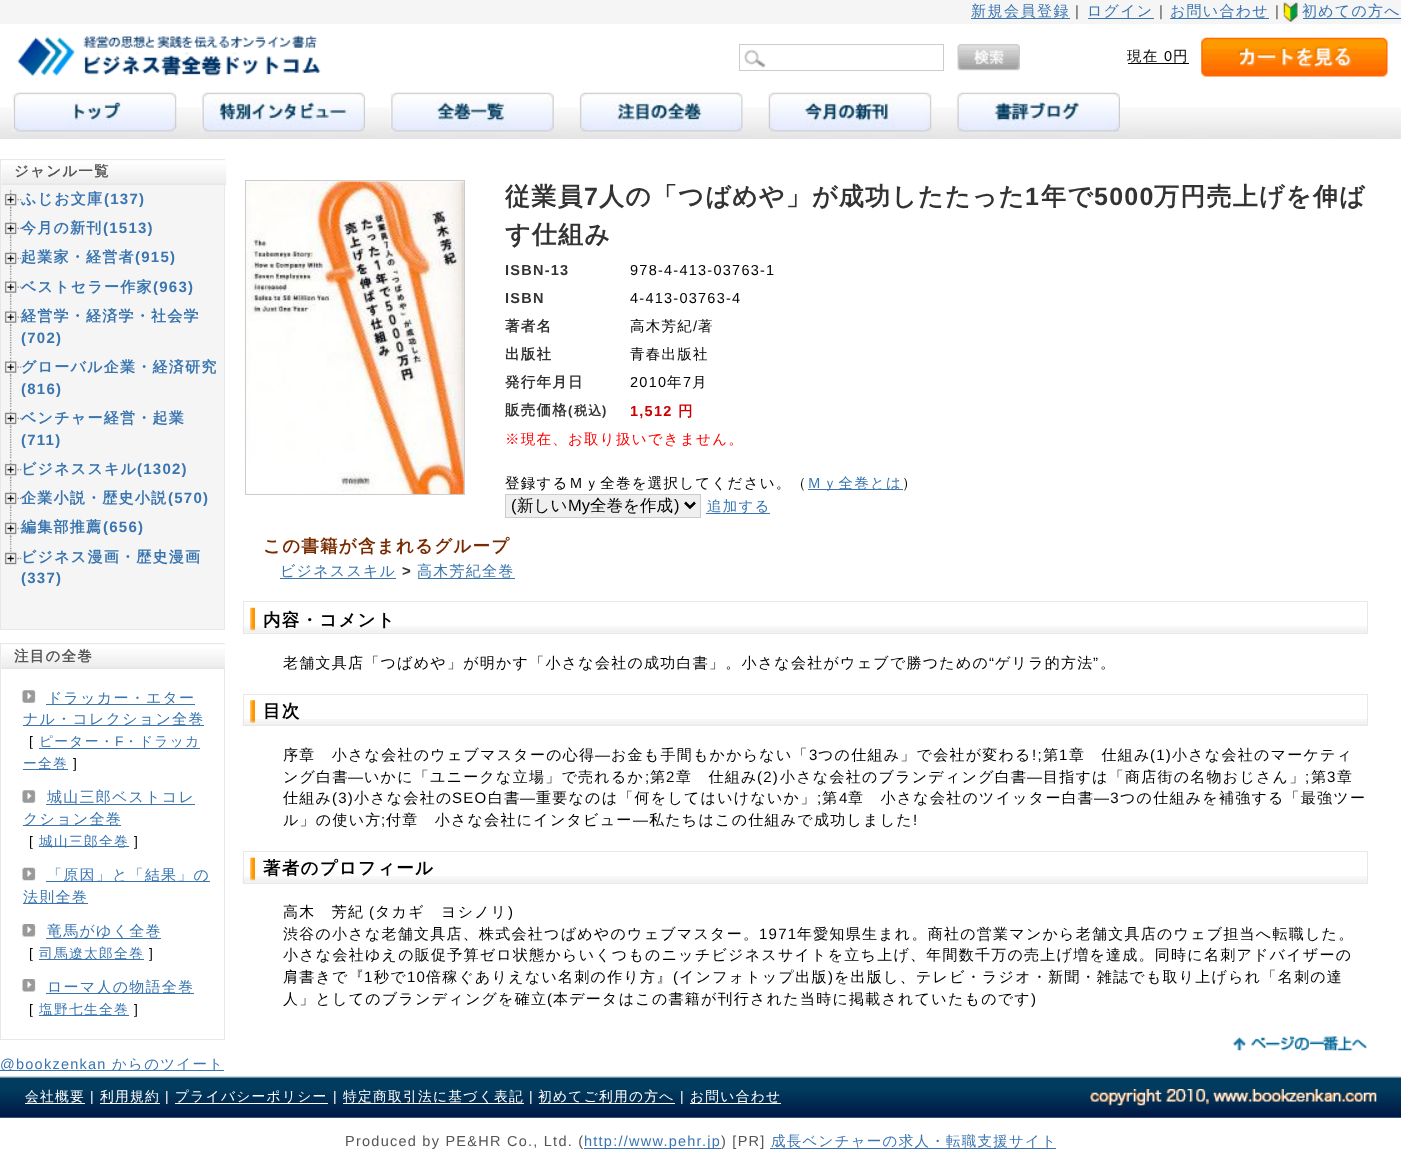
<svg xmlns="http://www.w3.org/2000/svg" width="1401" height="1150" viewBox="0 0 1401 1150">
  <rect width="100%" height="100%" fill="rgb(255,255,255)"/>
  <rect x="0" y="0" width="1401" height="24" fill="rgb(245,245,245)"/>
  <rect x="971" y="18" width="99" height="1" fill="rgb(58,117,175)"/>
  <text x="971" y="16" font-family="WenQuanYi Zen Hei" font-size="15" font-weight="500" letter-spacing="1.5" fill="rgb(58,117,175)">新規会員登録</text>
  <text x="1075" y="16" font-family="Liberation Sans" font-size="15" letter-spacing="1.5" fill="rgb(85,85,85)">|</text>
  <text x="1087" y="16" font-family="WenQuanYi Zen Hei" font-size="15" font-weight="500" letter-spacing="1.25" fill="rgb(58,117,175)">ログイン</text>
  <rect x="1088" y="18" width="66" height="1" fill="rgb(58,117,175)"/>
  <text x="1159" y="16" font-family="Liberation Sans" font-size="15" letter-spacing="1.25" fill="rgb(85,85,85)">|</text>
  <rect x="1170" y="18" width="99" height="1" fill="rgb(58,117,175)"/>
  <text x="1170" y="16" font-family="WenQuanYi Zen Hei" font-size="15" font-weight="500" letter-spacing="1.25" fill="rgb(58,117,175)">お問い合わせ</text>
  <text x="1275" y="16" font-family="Liberation Sans" font-size="15" letter-spacing="1.25" fill="rgb(85,85,85)">|</text>
  <image x="1283" y="2" width="15" height="20" href="pic1.png"/>
  <text x="1302" y="16" font-family="WenQuanYi Zen Hei" font-size="15" font-weight="500" letter-spacing="1.25" fill="rgb(58,117,175)">初めての方へ</text>
  <rect x="1303" y="18" width="98" height="1" fill="rgb(58,117,175)"/>
  <image x="17" y="35" width="304" height="42" href="pic2.png"/>
  <image x="743" y="49" width="23" height="19" href="pic3.png"/>
  <rect x="739.5" y="44.5" width="204" height="26" fill="none" stroke="rgb(204,204,204)"/>
  <image x="957" y="44" width="63" height="27" href="pic4.png"/>
  <text x="1127" y="61" font-family="WenQuanYi Zen Hei" font-size="14.5" font-weight="500" letter-spacing="1.25" fill="rgb(0,0,0)">現在</text>
  <rect x="1128" y="63" width="61" height="1" fill="rgb(0,0,0)"/>
  <text x="1164" y="61" font-family="Liberation Sans" font-size="14.5" letter-spacing="1.25" fill="rgb(0,0,0)">0</text>
  <text x="1173" y="61" font-family="WenQuanYi Zen Hei" font-size="14.5" font-weight="500" letter-spacing="1.25" fill="rgb(0,0,0)">円</text>
  <image x="1201" y="37" width="187" height="40" href="pic5.png"/>
  <image x="0" y="107" width="1401" height="32" href="pic6.png"/>
  <image x="12" y="92" width="165" height="40" href="pic7.png"/>
  <image x="201" y="92" width="164" height="40" href="pic8.png"/>
  <image x="390" y="92" width="164" height="40" href="pic9.png"/>
  <image x="579" y="92" width="164" height="40" href="pic10.png"/>
  <image x="768" y="92" width="164" height="40" href="pic11.png"/>
  <image x="956" y="92" width="164" height="40" href="pic12.png"/>
  <rect x="0.5" y="159.5" width="224" height="470" fill="none" stroke="rgb(232,232,232)"/>
  <image x="1" y="160" width="226" height="26" href="pic13.png"/>
  <text x="14" y="176" font-family="WenQuanYi Zen Hei" font-size="14.5" font-weight="bold" letter-spacing="1.25" fill="rgb(85,85,85)">ジャンル一覧</text>
  <rect x="1" y="185" width="223" height="444" fill="rgb(245,245,245)"/>
  <image x="9" y="190" width="3" height="28" href="pic14.png"/>
  <image x="4" y="193" width="18" height="15" href="pic15.png"/>
  <text x="21" y="204" font-family="WenQuanYi Zen Hei" font-size="15" font-weight="bold" letter-spacing="1.25" fill="rgb(58,117,175)">ふじお文庫</text>
  <text x="104" y="204" font-family="Liberation Sans" font-size="15" font-weight="bold" letter-spacing="1.25" fill="rgb(58,117,175)">(137)</text>
  <image x="9" y="218" width="3" height="30" href="pic16.png"/>
  <image x="4" y="222" width="18" height="15" href="pic17.png"/>
  <text x="21" y="233" font-family="WenQuanYi Zen Hei" font-size="15" font-weight="bold" letter-spacing="1.25" fill="rgb(58,117,175)">今月の新刊</text>
  <text x="103" y="233" font-family="Liberation Sans" font-size="15" font-weight="bold" letter-spacing="1.25" fill="rgb(58,117,175)">(1513)</text>
  <image x="9" y="248" width="3" height="29" href="pic18.png"/>
  <image x="4" y="252" width="18" height="15" href="pic19.png"/>
  <text x="21" y="262" font-family="WenQuanYi Zen Hei" font-size="15" font-weight="bold" letter-spacing="1.25" fill="rgb(58,117,175)">起業家・経営者</text>
  <text x="135" y="262" font-family="Liberation Sans" font-size="15" font-weight="bold" letter-spacing="1.25" fill="rgb(58,117,175)">(915)</text>
  <image x="9" y="277" width="3" height="30" href="pic20.png"/>
  <image x="4" y="281" width="18" height="15" href="pic21.png"/>
  <text x="21" y="292" font-family="WenQuanYi Zen Hei" font-size="15" font-weight="bold" letter-spacing="1.25" fill="rgb(58,117,175)">ベストセラー作家</text>
  <text x="153" y="292" font-family="Liberation Sans" font-size="15" font-weight="bold" letter-spacing="1.25" fill="rgb(58,117,175)">(963)</text>
  <image x="9" y="307" width="3" height="49" href="pic22.png"/>
  <image x="4" y="311" width="18" height="15" href="pic23.png"/>
  <text x="21" y="321" font-family="WenQuanYi Zen Hei" font-size="15" font-weight="bold" letter-spacing="1.25" fill="rgb(58,117,175)">経営学・経済学・社会学</text>
  <text x="21" y="343" font-family="Liberation Sans" font-size="15" font-weight="bold" letter-spacing="1.25" fill="rgb(58,117,175)">(702)</text>
  <image x="9" y="357" width="3" height="50" href="pic24.png"/>
  <image x="4" y="361" width="18" height="15" href="pic25.png"/>
  <text x="21" y="372" font-family="WenQuanYi Zen Hei" font-size="15" font-weight="bold" letter-spacing="1.25" fill="rgb(58,117,175)">グローバル企業・経済研究</text>
  <text x="21" y="394" font-family="Liberation Sans" font-size="15" font-weight="bold" letter-spacing="1.25" fill="rgb(58,117,175)">(816)</text>
  <image x="9" y="408" width="3" height="51" href="pic26.png"/>
  <image x="4" y="412" width="18" height="15" href="pic27.png"/>
  <text x="21" y="423" font-family="WenQuanYi Zen Hei" font-size="15" font-weight="bold" letter-spacing="1.25" fill="rgb(58,117,175)">ベンチャー経営・起業</text>
  <text x="21" y="445" font-family="Liberation Sans" font-size="15" font-weight="bold" letter-spacing="1.25" fill="rgb(58,117,175)">(711)</text>
  <image x="9" y="460" width="3" height="28" href="pic14.png"/>
  <image x="4" y="463" width="18" height="15" href="pic15.png"/>
  <text x="21" y="474" font-family="WenQuanYi Zen Hei" font-size="15" font-weight="bold" letter-spacing="1.25" fill="rgb(58,117,175)">ビジネススキル</text>
  <text x="137" y="474" font-family="Liberation Sans" font-size="15" font-weight="bold" letter-spacing="1.25" fill="rgb(58,117,175)">(1302)</text>
  <image x="9" y="488" width="3" height="30" href="pic16.png"/>
  <image x="4" y="492" width="18" height="15" href="pic17.png"/>
  <text x="21" y="503" font-family="WenQuanYi Zen Hei" font-size="15" font-weight="bold" letter-spacing="1.25" fill="rgb(58,117,175)">企業小説・歴史小説</text>
  <text x="168" y="503" font-family="Liberation Sans" font-size="15" font-weight="bold" letter-spacing="1.25" fill="rgb(58,117,175)">(570)</text>
  <image x="9" y="518" width="3" height="29" href="pic18.png"/>
  <image x="4" y="522" width="18" height="15" href="pic19.png"/>
  <text x="21" y="532" font-family="WenQuanYi Zen Hei" font-size="15" font-weight="bold" letter-spacing="1.25" fill="rgb(58,117,175)">編集部推薦</text>
  <text x="103" y="532" font-family="Liberation Sans" font-size="15" font-weight="bold" letter-spacing="1.25" fill="rgb(58,117,175)">(656)</text>
  <image x="4" y="547" width="18" height="18" href="pic28.png"/>
  <text x="21" y="562" font-family="WenQuanYi Zen Hei" font-size="15" font-weight="bold" letter-spacing="1.25" fill="rgb(58,117,175)">ビジネス漫画・歴史漫画</text>
  <text x="21" y="583" font-family="Liberation Sans" font-size="15" font-weight="bold" letter-spacing="1.25" fill="rgb(58,117,175)">(337)</text>
  <rect x="0.5" y="643.5" width="224" height="396" fill="none" stroke="rgb(232,232,232)"/>
  <image x="1" y="644" width="224" height="25" href="pic29.png"/>
  <text x="14" y="661" font-family="WenQuanYi Zen Hei" font-size="14.5" font-weight="bold" letter-spacing="1.25" fill="rgb(85,85,85)">注目の全巻</text>
  <image x="22" y="690" width="14" height="13" href="pic30.png"/>
  <rect x="46" y="704" width="149" height="1" fill="rgb(58,117,175)"/>
  <text x="47" y="703" font-family="WenQuanYi Zen Hei" font-size="15" font-weight="500" letter-spacing="1.25" fill="rgb(58,117,175)">ドラッカー・エター</text>
  <rect x="23" y="725" width="181" height="1" fill="rgb(58,117,175)"/>
  <text x="23" y="724" font-family="WenQuanYi Zen Hei" font-size="15" font-weight="500" letter-spacing="1.25" fill="rgb(58,117,175)">ナル・コレクション全巻</text>
  <text x="29" y="746" font-family="Liberation Sans" font-size="13.75" letter-spacing="1.25" fill="rgb(0,0,0)">[</text>
  <text x="39" y="746" font-family="WenQuanYi Zen Hei" font-size="13.75" font-weight="500" letter-spacing="1.25" fill="rgb(58,117,175)">ピーター・</text>
  <rect x="39" y="748" width="161" height="1" fill="rgb(58,117,175)"/>
  <text x="115" y="746" font-family="Liberation Sans" font-size="13.75" letter-spacing="1.25" fill="rgb(58,117,175)">F</text>
  <text x="124" y="746" font-family="WenQuanYi Zen Hei" font-size="13.75" font-weight="500" letter-spacing="1.25" fill="rgb(58,117,175)">・ドラッカ</text>
  <rect x="23" y="769" width="45" height="1" fill="rgb(58,117,175)"/>
  <text x="23" y="768" font-family="WenQuanYi Zen Hei" font-size="13.75" font-weight="500" letter-spacing="1.25" fill="rgb(58,117,175)">ー全巻</text>
  <text x="73" y="768" font-family="Liberation Sans" font-size="13.75" letter-spacing="1.25" fill="rgb(0,0,0)">]</text>
  <image x="22" y="790" width="14" height="13" href="pic30.png"/>
  <text x="47" y="802" font-family="WenQuanYi Zen Hei" font-size="15" font-weight="500" letter-spacing="1.25" fill="rgb(58,117,175)">城山三郎ベストコレ</text>
  <rect x="46" y="804" width="149" height="1" fill="rgb(58,117,175)"/>
  <rect x="23" y="825" width="98" height="1" fill="rgb(58,117,175)"/>
  <text x="23" y="824" font-family="WenQuanYi Zen Hei" font-size="15" font-weight="500" letter-spacing="1.25" fill="rgb(58,117,175)">クション全巻</text>
  <text x="29" y="846" font-family="Liberation Sans" font-size="13.75" letter-spacing="1.25" fill="rgb(0,0,0)">[</text>
  <rect x="39" y="846" width="90" height="1" fill="rgb(58,117,175)"/>
  <text x="39" y="846" font-family="WenQuanYi Zen Hei" font-size="13.75" font-weight="500" letter-spacing="1.25" fill="rgb(58,117,175)">城山三郎全巻</text>
  <text x="134" y="846" font-family="Liberation Sans" font-size="13.75" letter-spacing="1.25" fill="rgb(0,0,0)">]</text>
  <image x="22" y="867" width="14" height="14" href="pic31.png"/>
  <rect x="46" y="881" width="164" height="1" fill="rgb(58,117,175)"/>
  <text x="47" y="880" font-family="WenQuanYi Zen Hei" font-size="15" font-weight="500" letter-spacing="1.25" fill="rgb(58,117,175)">「原因」と「結果」の</text>
  <rect x="23" y="903" width="65" height="1" fill="rgb(58,117,175)"/>
  <text x="23" y="902" font-family="WenQuanYi Zen Hei" font-size="15" font-weight="500" letter-spacing="1.25" fill="rgb(58,117,175)">法則全巻</text>
  <image x="22" y="924" width="14" height="13" href="pic32.png"/>
  <rect x="46" y="938" width="115" height="1" fill="rgb(58,117,175)"/>
  <text x="47" y="936" font-family="WenQuanYi Zen Hei" font-size="15" font-weight="500" letter-spacing="1.25" fill="rgb(58,117,175)">竜馬がゆく全巻</text>
  <text x="29" y="958" font-family="Liberation Sans" font-size="13.75" letter-spacing="1.25" fill="rgb(0,0,0)">[</text>
  <rect x="39" y="959" width="105" height="1" fill="rgb(58,117,175)"/>
  <text x="39" y="958" font-family="WenQuanYi Zen Hei" font-size="13.75" font-weight="500" letter-spacing="1.25" fill="rgb(58,117,175)">司馬遼太郎全巻</text>
  <text x="149" y="958" font-family="Liberation Sans" font-size="13.75" letter-spacing="1.25" fill="rgb(0,0,0)">]</text>
  <image x="22" y="979" width="14" height="13" href="pic32.png"/>
  <rect x="46" y="993" width="148" height="1" fill="rgb(58,117,175)"/>
  <text x="47" y="992" font-family="WenQuanYi Zen Hei" font-size="15" font-weight="500" letter-spacing="1.25" fill="rgb(58,117,175)">ローマ人の物語全巻</text>
  <text x="29" y="1014" font-family="Liberation Sans" font-size="13.75" letter-spacing="1.25" fill="rgb(0,0,0)">[</text>
  <rect x="39" y="1015" width="90" height="1" fill="rgb(58,117,175)"/>
  <text x="39" y="1014" font-family="WenQuanYi Zen Hei" font-size="13.75" font-weight="500" letter-spacing="1.25" fill="rgb(58,117,175)">塩野七生全巻</text>
  <text x="134" y="1014" font-family="Liberation Sans" font-size="13.75" letter-spacing="1.25" fill="rgb(0,0,0)">]</text>
  <rect x="0" y="1070" width="224" height="1" fill="rgb(58,117,175)"/>
  <text x="0" y="1069" font-family="Liberation Sans" font-size="14.5" letter-spacing="1.25" fill="rgb(58,117,175)">@bookzenkan</text>
  <text x="112" y="1069" font-family="WenQuanYi Zen Hei" font-size="14.5" font-weight="500" letter-spacing="1.25" fill="rgb(58,117,175)">からのツイート</text>
  <rect x="245.5" y="180.5" width="219" height="314" fill="none" stroke="rgb(204,204,204)"/>
  <image x="246" y="181" width="218" height="313" href="pic33.png"/>
  <text x="505" y="205" font-family="WenQuanYi Zen Hei" font-size="25" font-weight="bold" letter-spacing="1.25" fill="rgb(51,51,51)">従業員</text>
  <text x="584" y="205" font-family="Liberation Sans" font-size="25" font-weight="bold" letter-spacing="1.25" fill="rgb(51,51,51)">7</text>
  <text x="599" y="205" font-family="WenQuanYi Zen Hei" font-size="25" font-weight="bold" letter-spacing="1.25" fill="rgb(51,51,51)">人の「つばめや」が成功したたった</text>
  <text x="1025" y="205" font-family="Liberation Sans" font-size="25" font-weight="bold" letter-spacing="1.25" fill="rgb(51,51,51)">1</text>
  <text x="1041" y="205" font-family="WenQuanYi Zen Hei" font-size="25" font-weight="bold" letter-spacing="1.25" fill="rgb(51,51,51)">年で</text>
  <text x="1094" y="205" font-family="Liberation Sans" font-size="25" font-weight="bold" letter-spacing="1.25" fill="rgb(51,51,51)">5000</text>
  <g font-family="WenQuanYi Zen Hei" font-size="25" font-weight="bold" letter-spacing="1.25" fill="rgb(51,51,51)">
    <text x="1154" y="205">万円売上げを伸ば</text>
    <text x="505" y="243">す仕組み</text>
  </g>
  <text x="505" y="275" font-family="Liberation Sans" font-size="14.5" font-weight="bold" letter-spacing="1.25" fill="rgb(51,51,51)">ISBN-13</text>
  <text x="630" y="275" font-family="Liberation Sans" font-size="14.5" letter-spacing="1.25" fill="rgb(0,0,0)">978-4-413-03763-1</text>
  <text x="505" y="303" font-family="Liberation Sans" font-size="14.5" font-weight="bold" letter-spacing="1.25" fill="rgb(51,51,51)">ISBN</text>
  <text x="630" y="303" font-family="Liberation Sans" font-size="14.5" letter-spacing="1.25" fill="rgb(0,0,0)">4-413-03763-4</text>
  <text x="505" y="331" font-family="WenQuanYi Zen Hei" font-size="14.5" font-weight="bold" letter-spacing="1.25" fill="rgb(51,51,51)">著者名</text>
  <text x="630" y="331" font-family="WenQuanYi Zen Hei" font-size="14.5" font-weight="500" letter-spacing="1.25" fill="rgb(0,0,0)">高木芳紀</text>
  <text x="693" y="331" font-family="Liberation Sans" font-size="14.5" letter-spacing="1.25" fill="rgb(0,0,0)">/</text>
  <text x="698" y="331" font-family="WenQuanYi Zen Hei" font-size="14.5" font-weight="500" letter-spacing="1.25" fill="rgb(0,0,0)">著</text>
  <text x="505" y="359" font-family="WenQuanYi Zen Hei" font-size="14.5" font-weight="bold" letter-spacing="1.25" fill="rgb(51,51,51)">出版社</text>
  <text x="630" y="359" font-family="WenQuanYi Zen Hei" font-size="14.5" font-weight="500" letter-spacing="1.25" fill="rgb(0,0,0)">青春出版社</text>
  <text x="505" y="387" font-family="WenQuanYi Zen Hei" font-size="14.5" font-weight="bold" letter-spacing="1.25" fill="rgb(51,51,51)">発行年月日</text>
  <text x="630" y="387" font-family="Liberation Sans" font-size="14.5" letter-spacing="1.25" fill="rgb(0,0,0)">2010</text>
  <text x="667" y="387" font-family="WenQuanYi Zen Hei" font-size="14.5" font-weight="500" letter-spacing="1.25" fill="rgb(0,0,0)">年</text>
  <text x="683" y="387" font-family="Liberation Sans" font-size="14.5" letter-spacing="1.25" fill="rgb(0,0,0)">7</text>
  <text x="692" y="387" font-family="WenQuanYi Zen Hei" font-size="14.5" font-weight="500" letter-spacing="1.25" fill="rgb(0,0,0)">月</text>
  <text x="505" y="415" font-family="WenQuanYi Zen Hei" font-size="14.5" font-weight="bold" letter-spacing="1.25" fill="rgb(51,51,51)">販売価格</text>
  <text x="568" y="415" font-family="Liberation Sans" font-size="13" font-weight="bold" letter-spacing="1.25" fill="rgb(51,51,51)">(</text>
  <text x="574" y="415" font-family="WenQuanYi Zen Hei" font-size="13" font-weight="bold" letter-spacing="1.25" fill="rgb(51,51,51)">税込</text>
  <text x="602" y="415" font-family="Liberation Sans" font-size="13" font-weight="bold" letter-spacing="1.25" fill="rgb(51,51,51)">)</text>
  <text x="630" y="416" font-family="Liberation Sans" font-size="14.5" font-weight="bold" letter-spacing="1.25" fill="rgb(204,0,0)">1,512</text>
  <text x="678" y="416" font-family="WenQuanYi Zen Hei" font-size="14.5" font-weight="bold" letter-spacing="1.25" fill="rgb(204,0,0)">円</text>
  <text x="505" y="444" font-family="WenQuanYi Zen Hei" font-size="14.5" font-weight="500" letter-spacing="1.25" fill="rgb(255,0,0)">※現在、お取り扱いできません。</text>
  <text x="505" y="488" font-family="WenQuanYi Zen Hei" font-size="14.5" font-weight="500" letter-spacing="1.25" fill="rgb(0,0,0)">登録するＭｙ全巻を選択してください。（</text>
  <rect x="808" y="489" width="95" height="1" fill="rgb(58,117,175)"/>
  <text x="807" y="488" font-family="WenQuanYi Zen Hei" font-size="14.5" font-weight="500" letter-spacing="1.25" fill="rgb(58,117,175)">Ｍｙ全巻とは</text>
  <text x="902" y="488" font-family="WenQuanYi Zen Hei" font-size="14.5" font-weight="500" letter-spacing="1.25" fill="rgb(0,0,0)">）</text>
  <rect x="505.5" y="494.5" width="195" height="23" fill="rgb(239,239,239)" stroke="rgb(204,204,204)"/>
  <path d="M685 502.5L690 507.5L695 502.5" fill="none" stroke="rgb(0,0,0)" stroke-width="2.5"/>
  <text x="511" y="511" font-family="Liberation Sans" font-size="16.5" fill="rgb(0,0,0)">(</text>
  <text x="517" y="511" font-family="WenQuanYi Zen Hei" font-size="16.5" font-weight="500" fill="rgb(0,0,0)">新しい</text>
  <text x="568" y="511" font-family="Liberation Sans" font-size="16.5" fill="rgb(0,0,0)">My</text>
  <text x="590" y="511" font-family="WenQuanYi Zen Hei" font-size="16.5" font-weight="500" fill="rgb(0,0,0)">全巻を作成</text>
  <text x="674" y="511" font-family="Liberation Sans" font-size="16.5" fill="rgb(0,0,0)">)</text>
  <rect x="706" y="513" width="64" height="1" fill="rgb(58,117,175)"/>
  <text x="707" y="511" font-family="WenQuanYi Zen Hei" font-size="14.5" font-weight="500" letter-spacing="1.25" fill="rgb(58,117,175)">追加する</text>
  <text x="263" y="552" font-family="WenQuanYi Zen Hei" font-size="17.5" font-weight="bold" letter-spacing="1.25" fill="rgb(120,43,1)">この書籍が含まれるグループ</text>
  <text x="280" y="576" font-family="WenQuanYi Zen Hei" font-size="15" font-weight="500" letter-spacing="1.25" fill="rgb(58,117,175)">ビジネススキル</text>
  <rect x="280" y="578" width="116" height="1" fill="rgb(58,117,175)"/>
  <text x="402" y="576" font-family="Liberation Sans" font-size="15" font-weight="bold" letter-spacing="1.25" fill="rgb(51,51,51)">&gt;</text>
  <text x="417" y="576" font-family="WenQuanYi Zen Hei" font-size="15" font-weight="500" letter-spacing="1.25" fill="rgb(58,117,175)">高木芳紀全巻</text>
  <rect x="418" y="578" width="97" height="1" fill="rgb(58,117,175)"/>
  <image x="242" y="626" width="1125" height="7" href="pic34.png"/>
  <rect x="243.5" y="601.5" width="1124" height="32" fill="none" stroke="rgb(232,232,232)"/>
  <image x="250" y="607" width="5" height="24" href="pic35.png"/>
  <text x="263" y="626" font-family="WenQuanYi Zen Hei" font-size="17.5" font-weight="bold" letter-spacing="1.25" fill="rgb(0,0,0)">内容・コメント</text>
  <text x="283" y="668" font-family="WenQuanYi Zen Hei" font-size="15" font-weight="500" letter-spacing="1.25" fill="rgb(0,0,0)">老舗文具店「つばめや」が明かす「小さな会社の成功白書」。小さな会社がウェブで勝つための</text>
  <text x="989" y="668" font-family="Liberation Sans" font-size="15" letter-spacing="1.25" fill="rgb(0,0,0)">“</text>
  <text x="995" y="668" font-family="WenQuanYi Zen Hei" font-size="15" font-weight="500" letter-spacing="1.25" fill="rgb(0,0,0)">ゲリラ的方法</text>
  <text x="1093" y="668" font-family="Liberation Sans" font-size="15" letter-spacing="1.25" fill="rgb(0,0,0)">”</text>
  <text x="1100" y="668" font-family="WenQuanYi Zen Hei" font-size="15" font-weight="500" letter-spacing="1.25" fill="rgb(0,0,0)">。</text>
  <image x="242" y="719" width="1125" height="7" href="pic36.png"/>
  <rect x="243.5" y="694.5" width="1124" height="31" fill="none" stroke="rgb(232,232,232)"/>
  <image x="250" y="700" width="5" height="23" href="pic37.png"/>
  <text x="263" y="717" font-family="WenQuanYi Zen Hei" font-size="17.5" font-weight="bold" letter-spacing="1.25" fill="rgb(0,0,0)">目次</text>
  <text x="283" y="760" font-family="WenQuanYi Zen Hei" font-size="15" font-weight="500" letter-spacing="1.25" fill="rgb(0,0,0)">序章　小さな会社のウェブマスターの心得</text>
  <text x="595" y="760" font-family="Liberation Sans" font-size="15" letter-spacing="1.25" fill="rgb(0,0,0)">―</text>
  <text x="611" y="760" font-family="WenQuanYi Zen Hei" font-size="15" font-weight="500" letter-spacing="1.25" fill="rgb(0,0,0)">お金も手間もかからない「</text>
  <text x="809" y="760" font-family="Liberation Sans" font-size="15" letter-spacing="1.25" fill="rgb(0,0,0)">3</text>
  <text x="818" y="760" font-family="WenQuanYi Zen Hei" font-size="15" font-weight="500" letter-spacing="1.25" fill="rgb(0,0,0)">つの仕組み」で会社が変わる</text>
  <text x="1032" y="760" font-family="Liberation Sans" font-size="15" letter-spacing="1.25" fill="rgb(0,0,0)">!;</text>
  <text x="1043" y="760" font-family="WenQuanYi Zen Hei" font-size="15" font-weight="500" letter-spacing="1.25" fill="rgb(0,0,0)">第</text>
  <text x="1059" y="760" font-family="Liberation Sans" font-size="15" letter-spacing="1.25" fill="rgb(0,0,0)">1</text>
  <text x="1069" y="760" font-family="WenQuanYi Zen Hei" font-size="15" font-weight="500" letter-spacing="1.25" fill="rgb(0,0,0)">章　仕組み</text>
  <text x="1150" y="760" font-family="Liberation Sans" font-size="15" letter-spacing="1.25" fill="rgb(0,0,0)">(1)</text>
  <g font-family="WenQuanYi Zen Hei" font-size="15" font-weight="500" letter-spacing="1.25" fill="rgb(0,0,0)">
    <text x="1172" y="760">小さな会社のマーケティ</text>
    <text x="283" y="782">ング白書</text>
  </g>
  <text x="348" y="782" font-family="Liberation Sans" font-size="15" letter-spacing="1.25" fill="rgb(0,0,0)">―</text>
  <text x="364" y="782" font-family="WenQuanYi Zen Hei" font-size="15" font-weight="500" letter-spacing="1.25" fill="rgb(0,0,0)">いかに「ユニークな立場」で売れるか</text>
  <text x="645" y="782" font-family="Liberation Sans" font-size="15" letter-spacing="1.25" fill="rgb(0,0,0)">;</text>
  <text x="650" y="782" font-family="WenQuanYi Zen Hei" font-size="15" font-weight="500" letter-spacing="1.25" fill="rgb(0,0,0)">第</text>
  <text x="666" y="782" font-family="Liberation Sans" font-size="15" letter-spacing="1.25" fill="rgb(0,0,0)">2</text>
  <text x="676" y="782" font-family="WenQuanYi Zen Hei" font-size="15" font-weight="500" letter-spacing="1.25" fill="rgb(0,0,0)">章　仕組み</text>
  <text x="757" y="782" font-family="Liberation Sans" font-size="15" letter-spacing="1.25" fill="rgb(0,0,0)">(2)</text>
  <text x="780" y="782" font-family="WenQuanYi Zen Hei" font-size="15" font-weight="500" letter-spacing="1.25" fill="rgb(0,0,0)">小さな会社のブランディング白書</text>
  <text x="1027" y="782" font-family="Liberation Sans" font-size="15" letter-spacing="1.25" fill="rgb(0,0,0)">―</text>
  <text x="1043" y="782" font-family="WenQuanYi Zen Hei" font-size="15" font-weight="500" letter-spacing="1.25" fill="rgb(0,0,0)">目指すは「商店街の名物おじさん」</text>
  <text x="1305" y="782" font-family="Liberation Sans" font-size="15" letter-spacing="1.25" fill="rgb(0,0,0)">;</text>
  <text x="1311" y="782" font-family="WenQuanYi Zen Hei" font-size="15" font-weight="500" letter-spacing="1.25" fill="rgb(0,0,0)">第</text>
  <text x="1327" y="782" font-family="Liberation Sans" font-size="15" letter-spacing="1.25" fill="rgb(0,0,0)">3</text>
  <g font-family="WenQuanYi Zen Hei" font-size="15" font-weight="500" letter-spacing="1.25" fill="rgb(0,0,0)">
    <text x="1337" y="782">章</text>
    <text x="283" y="803">仕組み</text>
  </g>
  <text x="332" y="803" font-family="Liberation Sans" font-size="15" letter-spacing="1.25" fill="rgb(0,0,0)">(3)</text>
  <text x="354" y="803" font-family="WenQuanYi Zen Hei" font-size="15" font-weight="500" letter-spacing="1.25" fill="rgb(0,0,0)">小さな会社の</text>
  <text x="452" y="803" font-family="Liberation Sans" font-size="15" letter-spacing="1.25" fill="rgb(0,0,0)">SEO</text>
  <text x="488" y="803" font-family="WenQuanYi Zen Hei" font-size="15" font-weight="500" letter-spacing="1.25" fill="rgb(0,0,0)">白書</text>
  <text x="520" y="803" font-family="Liberation Sans" font-size="15" letter-spacing="1.25" fill="rgb(0,0,0)">―</text>
  <text x="536" y="803" font-family="WenQuanYi Zen Hei" font-size="15" font-weight="500" letter-spacing="1.25" fill="rgb(0,0,0)">重要なのは「何をしてはいけないか」</text>
  <text x="817" y="803" font-family="Liberation Sans" font-size="15" letter-spacing="1.25" fill="rgb(0,0,0)">;</text>
  <text x="822" y="803" font-family="WenQuanYi Zen Hei" font-size="15" font-weight="500" letter-spacing="1.25" fill="rgb(0,0,0)">第</text>
  <text x="839" y="803" font-family="Liberation Sans" font-size="15" letter-spacing="1.25" fill="rgb(0,0,0)">4</text>
  <text x="848" y="803" font-family="WenQuanYi Zen Hei" font-size="15" font-weight="500" letter-spacing="1.25" fill="rgb(0,0,0)">章　小さな会社のツイッター白書</text>
  <text x="1094" y="803" font-family="Liberation Sans" font-size="15" letter-spacing="1.25" fill="rgb(0,0,0)">―3</text>
  <g font-family="WenQuanYi Zen Hei" font-size="15" font-weight="500" letter-spacing="1.25" fill="rgb(0,0,0)">
    <text x="1120" y="803">つの仕組みを補強する「最強ツー</text>
    <text x="283" y="825">ル」の使い方</text>
  </g>
  <text x="381" y="825" font-family="Liberation Sans" font-size="15" letter-spacing="1.25" fill="rgb(0,0,0)">;</text>
  <text x="386" y="825" font-family="WenQuanYi Zen Hei" font-size="15" font-weight="500" letter-spacing="1.25" fill="rgb(0,0,0)">付章　小さな会社にインタビュー</text>
  <text x="633" y="825" font-family="Liberation Sans" font-size="15" letter-spacing="1.25" fill="rgb(0,0,0)">―</text>
  <text x="649" y="825" font-family="WenQuanYi Zen Hei" font-size="15" font-weight="500" letter-spacing="1.25" fill="rgb(0,0,0)">私たちはこの仕組みで成功しました</text>
  <text x="913" y="825" font-family="Liberation Sans" font-size="15" letter-spacing="1.25" fill="rgb(0,0,0)">!</text>
  <image x="242" y="876" width="1125" height="7" href="pic34.png"/>
  <rect x="243.5" y="851.5" width="1124" height="32" fill="none" stroke="rgb(232,232,232)"/>
  <image x="250" y="857" width="5" height="24" href="pic35.png"/>
  <text x="263" y="874" font-family="WenQuanYi Zen Hei" font-size="17.5" font-weight="bold" letter-spacing="1.25" fill="rgb(0,0,0)">著者のプロフィール</text>
  <text x="283" y="917" font-family="WenQuanYi Zen Hei" font-size="15" font-weight="500" letter-spacing="1.25" fill="rgb(0,0,0)">高木　芳紀</text>
  <text x="369" y="917" font-family="Liberation Sans" font-size="15" letter-spacing="1.25" fill="rgb(0,0,0)">(</text>
  <text x="375" y="917" font-family="WenQuanYi Zen Hei" font-size="15" font-weight="500" letter-spacing="1.25" fill="rgb(0,0,0)">タカギ　ヨシノリ</text>
  <text x="508" y="917" font-family="Liberation Sans" font-size="15" letter-spacing="1.25" fill="rgb(0,0,0)">)</text>
  <text x="283" y="939" font-family="WenQuanYi Zen Hei" font-size="15" font-weight="500" letter-spacing="1.25" fill="rgb(0,0,0)">渋谷の小さな老舗文具店、株式会社つばめやのウェブマスター。</text>
  <text x="759" y="939" font-family="Liberation Sans" font-size="15" letter-spacing="1.25" fill="rgb(0,0,0)">1971</text>
  <g font-family="WenQuanYi Zen Hei" font-size="15" font-weight="500" letter-spacing="1.25" fill="rgb(0,0,0)">
    <text x="797" y="939">年愛知県生まれ。商社の営業マンから老舗文具店のウェブ担当へ転職した。</text>
    <text>
      <tspan x="283" y="960">小さな会社ゆえの販促予算ゼロ状態からいくつものニッチビジネスサイトを立ち上げ、年間数千万の売上げ増を達成。同時に名刺アドバイザーの</tspan>
      <tspan x="283" y="982">肩書きで『</tspan>
    </text>
  </g>
  <text x="364" y="982" font-family="Liberation Sans" font-size="15" letter-spacing="1.25" fill="rgb(0,0,0)">1</text>
  <text x="374" y="982" font-family="WenQuanYi Zen Hei" font-size="15" font-weight="500" letter-spacing="1.25" fill="rgb(0,0,0)">秒で</text>
  <text x="407" y="982" font-family="Liberation Sans" font-size="15" letter-spacing="1.25" fill="rgb(0,0,0)">10</text>
  <text x="426" y="982" font-family="WenQuanYi Zen Hei" font-size="15" font-weight="500" letter-spacing="1.25" fill="rgb(0,0,0)">倍稼ぐありえない名刺の作り方』</text>
  <text x="673" y="982" font-family="Liberation Sans" font-size="15" letter-spacing="1.25" fill="rgb(0,0,0)">(</text>
  <text x="679" y="982" font-family="WenQuanYi Zen Hei" font-size="15" font-weight="500" letter-spacing="1.25" fill="rgb(0,0,0)">インフォトップ出版</text>
  <text x="828" y="982" font-family="Liberation Sans" font-size="15" letter-spacing="1.25" fill="rgb(0,0,0)">)</text>
  <g font-family="WenQuanYi Zen Hei" font-size="15" font-weight="500" letter-spacing="1.25" fill="rgb(0,0,0)">
    <text x="834" y="982">を出版し、テレビ・ラジオ・新聞・雑誌でも取り上げられ「名刺の達</text>
    <text x="283" y="1004">人」としてのブランディングを確立</text>
  </g>
  <text x="547" y="1004" font-family="Liberation Sans" font-size="15" letter-spacing="1.25" fill="rgb(0,0,0)">(</text>
  <text x="553" y="1004" font-family="WenQuanYi Zen Hei" font-size="15" font-weight="500" letter-spacing="1.25" fill="rgb(0,0,0)">本データはこの書籍が刊行された当時に掲載されていたものです</text>
  <text x="1031" y="1004" font-family="Liberation Sans" font-size="15" letter-spacing="1.25" fill="rgb(0,0,0)">)</text>
  <image x="1232" y="1036" width="135" height="15" href="pic38.png"/>
  <image x="0" y="1076" width="1401" height="42" href="pic39.png"/>
  <text x="25" y="1101" font-family="WenQuanYi Zen Hei" font-size="13.75" font-weight="500" letter-spacing="1.25" fill="rgb(255,255,255)">会社概要</text>
  <rect x="25" y="1103" width="60" height="1" fill="rgb(255,255,255)"/>
  <text x="90" y="1101" font-family="Liberation Sans" font-size="13.75" letter-spacing="1.25" fill="rgb(255,255,255)">|</text>
  <rect x="100" y="1103" width="60" height="1" fill="rgb(255,255,255)"/>
  <text x="100" y="1101" font-family="WenQuanYi Zen Hei" font-size="13.75" font-weight="500" letter-spacing="1.25" fill="rgb(255,255,255)">利用規約</text>
  <text x="165" y="1101" font-family="Liberation Sans" font-size="13.75" letter-spacing="1.25" fill="rgb(255,255,255)">|</text>
  <text x="175" y="1101" font-family="WenQuanYi Zen Hei" font-size="13.75" font-weight="500" letter-spacing="1.25" fill="rgb(255,255,255)">プライバシーポリシー</text>
  <rect x="175" y="1103" width="153" height="1" fill="rgb(255,255,255)"/>
  <text x="333" y="1101" font-family="Liberation Sans" font-size="13.75" letter-spacing="1.25" fill="rgb(255,255,255)">|</text>
  <rect x="343" y="1103" width="181" height="1" fill="rgb(255,255,255)"/>
  <text x="343" y="1101" font-family="WenQuanYi Zen Hei" font-size="13.75" font-weight="500" letter-spacing="1.25" fill="rgb(255,255,255)">特定商取引法に基づく表記</text>
  <text x="529" y="1101" font-family="Liberation Sans" font-size="13.75" letter-spacing="1.25" fill="rgb(255,255,255)">|</text>
  <text x="538" y="1101" font-family="WenQuanYi Zen Hei" font-size="13.75" font-weight="500" letter-spacing="1.25" fill="rgb(255,255,255)">初めてご利用の方へ</text>
  <rect x="539" y="1103" width="136" height="1" fill="rgb(255,255,255)"/>
  <text x="680" y="1101" font-family="Liberation Sans" font-size="13.75" letter-spacing="1.25" fill="rgb(255,255,255)">|</text>
  <rect x="690" y="1103" width="91" height="1" fill="rgb(255,255,255)"/>
  <text x="690" y="1101" font-family="WenQuanYi Zen Hei" font-size="13.75" font-weight="500" letter-spacing="1.25" fill="rgb(255,255,255)">お問い合わせ</text>
  <image x="1090" y="1089" width="287" height="17" href="pic40.png"/>
  <text x="345" y="1146" font-family="Liberation Sans" font-size="14.5" letter-spacing="1.25" fill="rgb(85,85,85)">Produced by PE&amp;HR Co., Ltd. (</text>
  <rect x="584" y="1148" width="137" height="1" fill="rgb(58,117,175)"/>
  <text x="584" y="1146" font-family="Liberation Sans" font-size="14.5" letter-spacing="1.25" fill="rgb(58,117,175)">http://www.pehr.jp</text>
  <text x="721" y="1146" font-family="Liberation Sans" font-size="14.5" letter-spacing="1.25" fill="rgb(85,85,85)">) [PR]</text>
  <rect x="770" y="1148" width="286" height="1" fill="rgb(58,117,175)"/>
  <text x="771" y="1146" font-family="WenQuanYi Zen Hei" font-size="14.5" font-weight="500" letter-spacing="1.25" fill="rgb(58,117,175)">成長ベンチャーの求人・転職支援サイト</text>
</svg>
